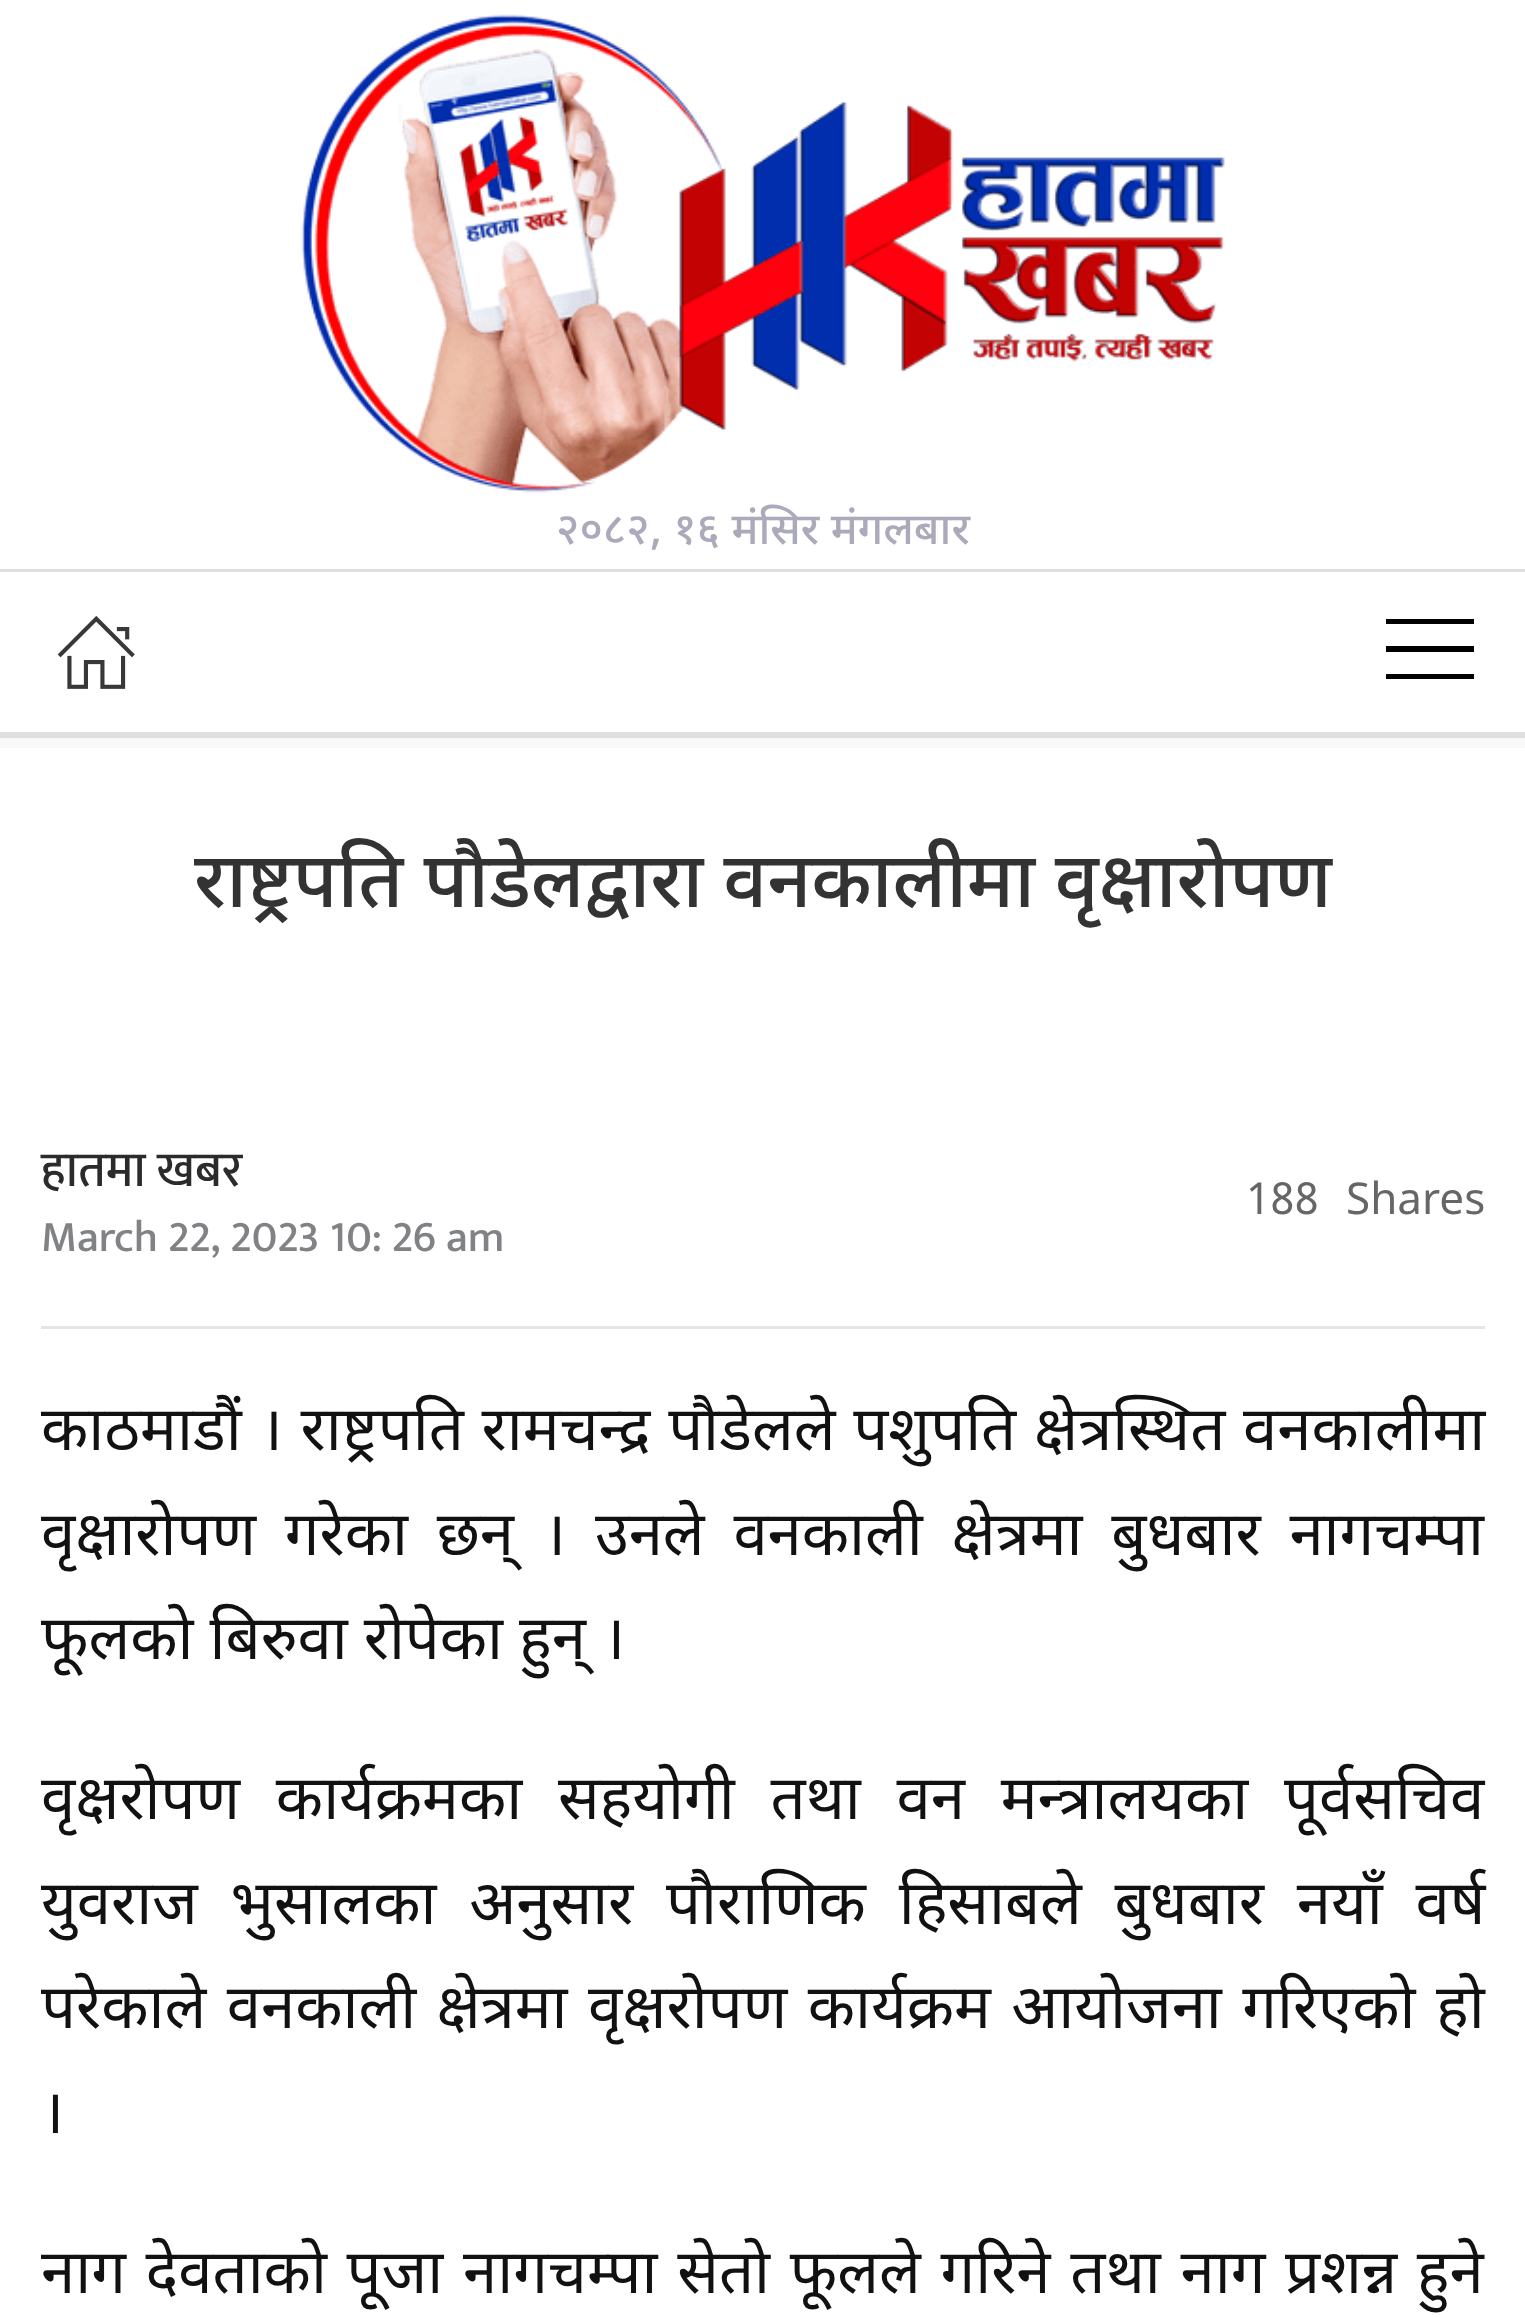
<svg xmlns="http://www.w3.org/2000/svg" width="1525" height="2318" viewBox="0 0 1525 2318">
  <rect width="100%" height="100%" fill="rgb(255,255,255)"/>
  <image x="301" y="14" width="924" height="479" href="pic1.png"/>
  <text x="556" y="544" font-family="Noto Sans Devanagari" font-size="44" font-weight="500" fill="rgb(171,170,186)">२०८२, १६ मंसिर मंगलबार</text>
  <rect x="0" y="569" width="1525" height="3" fill="rgb(223,223,223)"/>
  <rect x="0" y="732" width="1525" height="6" fill="rgb(223,223,223)"/>
  <image x="57" y="615" width="78" height="74" href="pic2.png"/>
  <rect x="1386" y="619" width="88" height="5" fill="rgb(0,0,0)"/>
  <rect x="1386" y="646" width="88" height="6" fill="rgb(0,0,0)"/>
  <rect x="1386" y="674" width="88" height="5" fill="rgb(0,0,0)"/>
  <rect x="0" y="738" width="1525" height="10" fill="rgb(248,248,248)"/>
  <text x="194" y="907" font-family="Noto Sans Devanagari" font-size="77" font-weight="500" fill="rgb(51,51,51)">राष्ट्रपति पौडेलद्वारा वनकालीमा वृक्षारोपण</text>
  <text x="41" y="1186" font-family="Mukta" font-size="49.5" font-weight="500" fill="rgb(43,43,43)">हातमा खबर</text>
  <text x="41" y="1251" font-family="Mukta" font-size="44" font-weight="500" fill="rgb(129,130,133)">March 22, 2023 10: 26 am</text>
  <g font-family="Noto Sans Devanagari" font-size="44" fill="rgb(102,102,102)">
    <text x="1246" y="1214">188</text>
    <text x="1346" y="1214">Shares</text>
  </g>
  <rect x="41" y="1326" width="1444" height="3" fill="rgb(229,229,229)"/>
  <g font-family="Noto Sans Devanagari" font-size="61.6" fill="rgb(17,17,17)">
    <text>
      <tspan x="41" y="1450" word-spacing="1.75">काठमाडौं । राष्ट्रपति रामचन्द्र पौडेलले पशुपति क्षेत्रस्थित वनकालीमा</tspan>
      <tspan x="41" y="1555" word-spacing="12.75">वृक्षारोपण गरेका छन् । उनले वनकाली क्षेत्रमा बुधबार नागचम्पा</tspan>
      <tspan x="41" y="1659">फूलको बिरुवा रोपेका हुन् ।</tspan>
    </text>
    <text>
      <tspan x="41" y="1819" word-spacing="19.75">वृक्षरोपण कार्यक्रमका सहयोगी तथा वन मन्त्रालयका पूर्वसचिव</tspan>
      <tspan x="41" y="1924" word-spacing="16.75">युवराज भुसालका अनुसार पौराणिक हिसाबले बुधबार नयाँ वर्ष</tspan>
      <tspan x="41" y="2028" word-spacing="4.5">परेकाले वनकाली क्षेत्रमा वृक्षरोपण कार्यक्रम आयोजना गरिएको हो</tspan>
      <tspan x="41" y="2133">।</tspan>
    </text>
    <text x="41" y="2293" word-spacing="3.75">नाग देवताको पूजा नागचम्पा सेतो फूलले गरिने तथा नाग प्रशन्न हुने</text>
  </g>
</svg>
